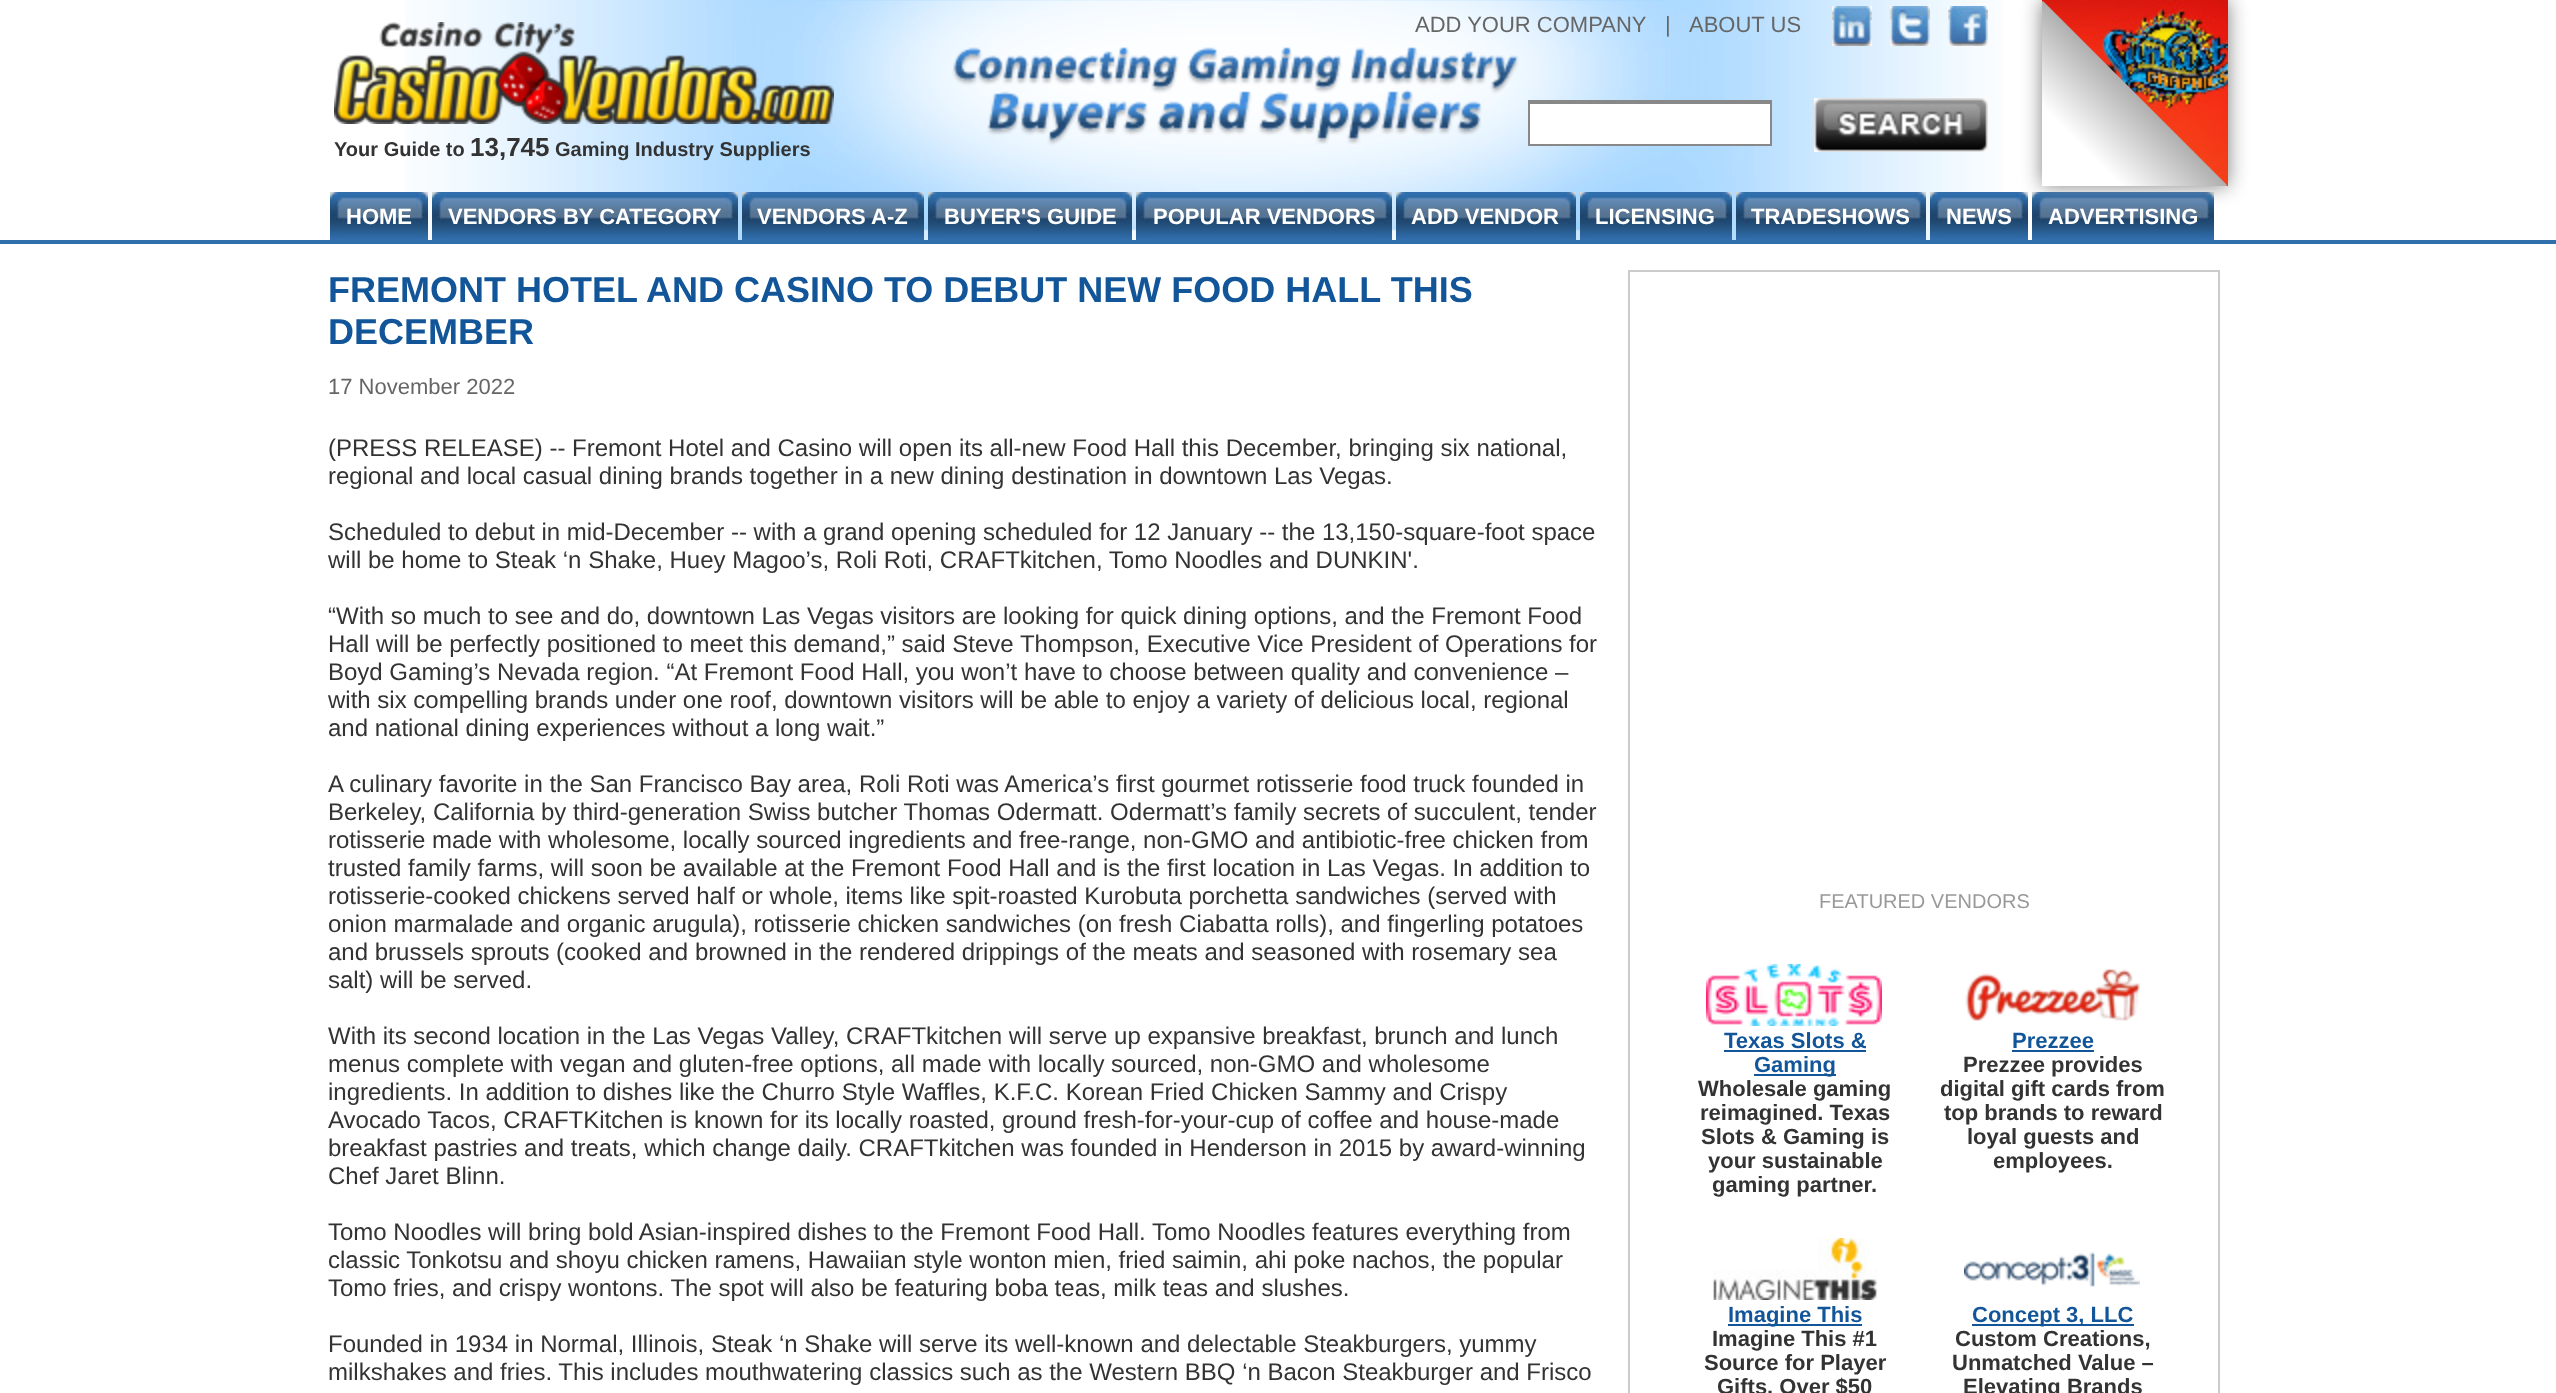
<svg xmlns="http://www.w3.org/2000/svg" width="2556" height="1393" viewBox="0 0 2556 1393">
  <defs>
    <clipPath id="clip1"><rect x="2042" y="0" width="186" height="186"/></clipPath>
    <linearGradient id="g1" gradientUnits="userSpaceOnUse" x1="2135" y1="93" x2="1951" y2="277"><stop offset="0" stop-color="rgb(175,175,175)"/><stop offset="0.29" stop-color="rgb(255,255,255)"/></linearGradient>
  </defs>
  <rect width="100%" height="100%" fill="rgb(255,255,255)"/>
  <image x="406" y="0" width="1596" height="240" href="pic1.png"/>
  <g font-family="Liberation Sans" font-size="22" fill="rgb(102,102,102)">
    <text x="1415" y="32">ADD YOUR COMPANY</text>
    <text x="1665" y="32">|</text>
    <text x="1689" y="32">ABOUT US</text>
  </g>
  <image x="1832" y="6" width="40" height="40" href="pic2.png"/>
  <image x="1890" y="6" width="40" height="40" href="pic3.png"/>
  <image x="1948" y="6" width="40" height="40" href="pic4.png"/>
  <rect x="1530" y="104" width="240" height="40" fill="rgb(255,255,255)"/>
  <rect x="1528" y="100" width="244" height="4" fill="rgb(136,136,136)"/>
  <rect x="1770" y="100" width="2" height="46" fill="rgb(136,136,136)"/>
  <rect x="1528" y="144" width="244" height="2" fill="rgb(136,136,136)"/>
  <rect x="1528" y="100" width="2" height="46" fill="rgb(136,136,136)"/>
  <image x="1814" y="98" width="174" height="54" href="pic5.png"/>
  <image x="334" y="22" width="500" height="102" href="pic6.png"/>
  <text x="334" y="156" font-family="Liberation Sans" font-size="20" font-weight="bold" fill="rgb(51,51,51)">Your Guide to</text>
  <text x="470" y="156" font-family="Liberation Sans" font-size="26" font-weight="bold" fill="rgb(51,51,51)">13,745</text>
  <text x="555" y="156" font-family="Liberation Sans" font-size="20" font-weight="bold" fill="rgb(51,51,51)">Gaming Industry Suppliers</text>
  <image x="330" y="192" width="12" height="48" href="pic7.png"/>
  <image x="342" y="192" width="74" height="48" href="pic8.png"/>
  <text x="346" y="224" font-family="Liberation Sans" font-size="22" font-weight="bold" fill="rgb(255,255,255)">HOME</text>
  <image x="416" y="192" width="12" height="48" href="pic9.png"/>
  <image x="432" y="192" width="12" height="48" href="pic7.png"/>
  <image x="444" y="192" width="282" height="48" href="pic10.png"/>
  <text x="448" y="224" font-family="Liberation Sans" font-size="22" font-weight="bold" fill="rgb(255,255,255)">VENDORS BY CATEGORY</text>
  <image x="726" y="192" width="12" height="48" href="pic9.png"/>
  <image x="742" y="192" width="12" height="48" href="pic7.png"/>
  <image x="754" y="192" width="158" height="48" href="pic11.png"/>
  <text x="757" y="224" font-family="Liberation Sans" font-size="22" font-weight="bold" fill="rgb(255,255,255)">VENDORS A-Z</text>
  <image x="912" y="192" width="12" height="48" href="pic9.png"/>
  <image x="928" y="192" width="12" height="48" href="pic7.png"/>
  <image x="940" y="192" width="180" height="48" href="pic12.png"/>
  <text x="944" y="224" font-family="Liberation Sans" font-size="22" font-weight="bold" fill="rgb(255,255,255)">BUYER'S GUIDE</text>
  <image x="1120" y="192" width="12" height="48" href="pic9.png"/>
  <image x="1136" y="192" width="12" height="48" href="pic7.png"/>
  <image x="1148" y="192" width="232" height="48" href="pic13.png"/>
  <text x="1153" y="224" font-family="Liberation Sans" font-size="22" font-weight="bold" fill="rgb(255,255,255)">POPULAR VENDORS</text>
  <image x="1380" y="192" width="12" height="48" href="pic9.png"/>
  <image x="1396" y="192" width="12" height="48" href="pic7.png"/>
  <image x="1408" y="192" width="156" height="48" href="pic14.png"/>
  <text x="1411" y="224" font-family="Liberation Sans" font-size="22" font-weight="bold" fill="rgb(255,255,255)">ADD VENDOR</text>
  <image x="1564" y="192" width="12" height="48" href="pic9.png"/>
  <image x="1580" y="192" width="12" height="48" href="pic7.png"/>
  <image x="1592" y="192" width="128" height="48" href="pic15.png"/>
  <text x="1595" y="224" font-family="Liberation Sans" font-size="22" font-weight="bold" fill="rgb(255,255,255)">LICENSING</text>
  <image x="1720" y="192" width="12" height="48" href="pic9.png"/>
  <image x="1736" y="192" width="12" height="48" href="pic7.png"/>
  <image x="1748" y="192" width="166" height="48" href="pic16.png"/>
  <text x="1751" y="224" font-family="Liberation Sans" font-size="22" font-weight="bold" fill="rgb(255,255,255)">TRADESHOWS</text>
  <image x="1914" y="192" width="12" height="48" href="pic9.png"/>
  <image x="1930" y="192" width="12" height="48" href="pic7.png"/>
  <image x="1942" y="192" width="74" height="48" href="pic8.png"/>
  <text x="1946" y="224" font-family="Liberation Sans" font-size="22" font-weight="bold" fill="rgb(255,255,255)">NEWS</text>
  <image x="2016" y="192" width="12" height="48" href="pic9.png"/>
  <image x="2032" y="192" width="12" height="48" href="pic7.png"/>
  <image x="2044" y="192" width="158" height="48" href="pic11.png"/>
  <text x="2048" y="224" font-family="Liberation Sans" font-size="22" font-weight="bold" fill="rgb(255,255,255)">ADVERTISING</text>
  <image x="2202" y="192" width="12" height="48" href="pic9.png"/>
  <rect x="0" y="240" width="2556" height="4" fill="rgb(49,110,172)"/>
  <rect x="2042" y="0" width="186" height="186" fill="rgb(128,128,128)" filter="blur(10px)"/>
  <image x="2042" y="0" width="186" height="186" href="pic17.png"/>
  <g clip-path="url(#clip1)">
    <path d="M2227 185L2043 369L1859 185L2043 1Z" fill="url(#g1)"/>
  </g>
  <g font-family="Liberation Sans" font-size="36" font-weight="bold" fill="rgb(18,86,153)">
    <text>
      <tspan x="328" y="302">FREMONT HOTEL AND CASINO TO DEBUT NEW FOOD HALL THIS</tspan>
      <tspan x="328" y="344">DECEMBER</tspan>
    </text>
  </g>
  <text x="328" y="394" font-family="Liberation Sans" font-size="22" fill="rgb(102,102,102)">17 November 2022</text>
  <g font-family="Liberation Sans" font-size="24" fill="rgb(51,51,51)">
    <text>
      <tspan x="328" y="456">(PRESS RELEASE) -- Fremont Hotel and Casino will open its all-new Food Hall this December, bringing six national,</tspan>
      <tspan x="328" y="484">regional and local casual dining brands together in a new dining destination in downtown Las Vegas.</tspan>
    </text>
    <text>
      <tspan x="328" y="540">Scheduled to debut in mid-December -- with a grand opening scheduled for 12 January -- the 13,150-square-foot space</tspan>
      <tspan x="328" y="568">will be home to Steak ‘n Shake, Huey Magoo’s, Roli Roti, CRAFTkitchen, Tomo Noodles and DUNKIN'.</tspan>
    </text>
    <text>
      <tspan x="328" y="624">“With so much to see and do, downtown Las Vegas visitors are looking for quick dining options, and the Fremont Food</tspan>
      <tspan x="328" y="652">Hall will be perfectly positioned to meet this demand,” said Steve Thompson, Executive Vice President of Operations for</tspan>
      <tspan x="328" y="680">Boyd Gaming’s Nevada region. “At Fremont Food Hall, you won’t have to choose between quality and convenience –</tspan>
      <tspan x="328" y="708">with six compelling brands under one roof, downtown visitors will be able to enjoy a variety of delicious local, regional</tspan>
      <tspan x="328" y="736">and national dining experiences without a long wait.”</tspan>
    </text>
    <text>
      <tspan x="328" y="792">A culinary favorite in the San Francisco Bay area, Roli Roti was America’s first gourmet rotisserie food truck founded in</tspan>
      <tspan x="328" y="820">Berkeley, California by third-generation Swiss butcher Thomas Odermatt. Odermatt’s family secrets of succulent, tender</tspan>
      <tspan x="328" y="848">rotisserie made with wholesome, locally sourced ingredients and free-range, non-GMO and antibiotic-free chicken from</tspan>
      <tspan x="328" y="876">trusted family farms, will soon be available at the Fremont Food Hall and is the first location in Las Vegas. In addition to</tspan>
      <tspan x="328" y="904">rotisserie-cooked chickens served half or whole, items like spit-roasted Kurobuta porchetta sandwiches (served with</tspan>
      <tspan x="328" y="932">onion marmalade and organic arugula), rotisserie chicken sandwiches (on fresh Ciabatta rolls), and fingerling potatoes</tspan>
      <tspan x="328" y="960">and brussels sprouts (cooked and browned in the rendered drippings of the meats and seasoned with rosemary sea</tspan>
      <tspan x="328" y="988">salt) will be served.</tspan>
    </text>
    <text>
      <tspan x="328" y="1044">With its second location in the Las Vegas Valley, CRAFTkitchen will serve up expansive breakfast, brunch and lunch</tspan>
      <tspan x="328" y="1072">menus complete with vegan and gluten-free options, all made with locally sourced, non-GMO and wholesome</tspan>
      <tspan x="328" y="1100">ingredients. In addition to dishes like the Churro Style Waffles, K.F.C. Korean Fried Chicken Sammy and Crispy</tspan>
      <tspan x="328" y="1128">Avocado Tacos, CRAFTKitchen is known for its locally roasted, ground fresh-for-your-cup of coffee and house-made</tspan>
      <tspan x="328" y="1156">breakfast pastries and treats, which change daily. CRAFTkitchen was founded in Henderson in 2015 by award-winning</tspan>
      <tspan x="328" y="1184">Chef Jaret Blinn.</tspan>
    </text>
    <text>
      <tspan x="328" y="1240">Tomo Noodles will bring bold Asian-inspired dishes to the Fremont Food Hall. Tomo Noodles features everything from</tspan>
      <tspan x="328" y="1268">classic Tonkotsu and shoyu chicken ramens, Hawaiian style wonton mien, fried saimin, ahi poke nachos, the popular</tspan>
      <tspan x="328" y="1296">Tomo fries, and crispy wontons. The spot will also be featuring boba teas, milk teas and slushes.</tspan>
    </text>
    <text>
      <tspan x="328" y="1352">Founded in 1934 in Normal, Illinois, Steak ‘n Shake will serve its well-known and delectable Steakburgers, yummy</tspan>
      <tspan x="328" y="1380">milkshakes and fries. This includes mouthwatering classics such as the Western BBQ ‘n Bacon Steakburger and Frisco</tspan>
    </text>
  </g>
  <rect x="1629" y="271" width="590" height="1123" fill="none" stroke="rgb(204,204,204)" stroke-width="2"/>
  <text x="1819" y="908" font-family="Liberation Sans" font-size="20" fill="rgb(153,153,153)">FEATURED VENDORS</text>
  <image x="1706" y="964" width="176" height="62" href="pic18.png"/>
  <image x="1965" y="968" width="175" height="53" href="pic19.png"/>
  <text x="1724" y="1048" font-family="Liberation Sans" font-size="22" font-weight="bold" fill="rgb(18,86,153)">Texas Slots &amp;</text>
  <rect x="1724" y="1050" width="142" height="2" fill="rgb(18,86,153)"/>
  <rect x="1754" y="1074" width="82" height="2" fill="rgb(18,86,153)"/>
  <text x="1754" y="1072" font-family="Liberation Sans" font-size="22" font-weight="bold" fill="rgb(18,86,153)">Gaming</text>
  <g font-family="Liberation Sans" font-size="22" font-weight="bold" fill="rgb(51,51,51)">
    <text x="1698" y="1096">Wholesale gaming</text>
    <text x="1700" y="1120">reimagined. Texas</text>
    <text x="1701" y="1144">Slots &amp; Gaming is</text>
    <text x="1708" y="1168">your sustainable</text>
    <text x="1712" y="1192">gaming partner.</text>
  </g>
  <text x="2012" y="1048" font-family="Liberation Sans" font-size="22" font-weight="bold" fill="rgb(18,86,153)">Prezzee</text>
  <rect x="2012" y="1050" width="82" height="2" fill="rgb(18,86,153)"/>
  <g font-family="Liberation Sans" font-size="22" font-weight="bold" fill="rgb(51,51,51)">
    <text x="1963" y="1072">Prezzee provides</text>
    <text x="1940" y="1096">digital gift cards from</text>
    <text x="1944" y="1120">top brands to reward</text>
    <text x="1967" y="1144">loyal guests and</text>
    <text x="1993" y="1168">employees.</text>
  </g>
  <image x="1713" y="1238" width="165" height="62" href="pic20.png"/>
  <image x="1964" y="1251" width="176" height="36" href="pic21.png"/>
  <rect x="1728" y="1324" width="134" height="2" fill="rgb(18,86,153)"/>
  <text x="1728" y="1322" font-family="Liberation Sans" font-size="22" font-weight="bold" fill="rgb(18,86,153)">Imagine This</text>
  <g font-family="Liberation Sans" font-size="22" font-weight="bold" fill="rgb(51,51,51)">
    <text x="1712" y="1346">Imagine This #1</text>
    <text x="1704" y="1370">Source for Player</text>
    <text x="1717" y="1394">Gifts. Over $50</text>
  </g>
  <rect x="1972" y="1324" width="162" height="2" fill="rgb(18,86,153)"/>
  <text x="1972" y="1322" font-family="Liberation Sans" font-size="22" font-weight="bold" fill="rgb(18,86,153)">Concept 3, LLC</text>
  <g font-family="Liberation Sans" font-size="22" font-weight="bold" fill="rgb(51,51,51)">
    <text x="1955" y="1346">Custom Creations,</text>
    <text x="1952" y="1370">Unmatched Value –</text>
    <text x="1963" y="1394">Elevating Brands</text>
  </g>
</svg>
